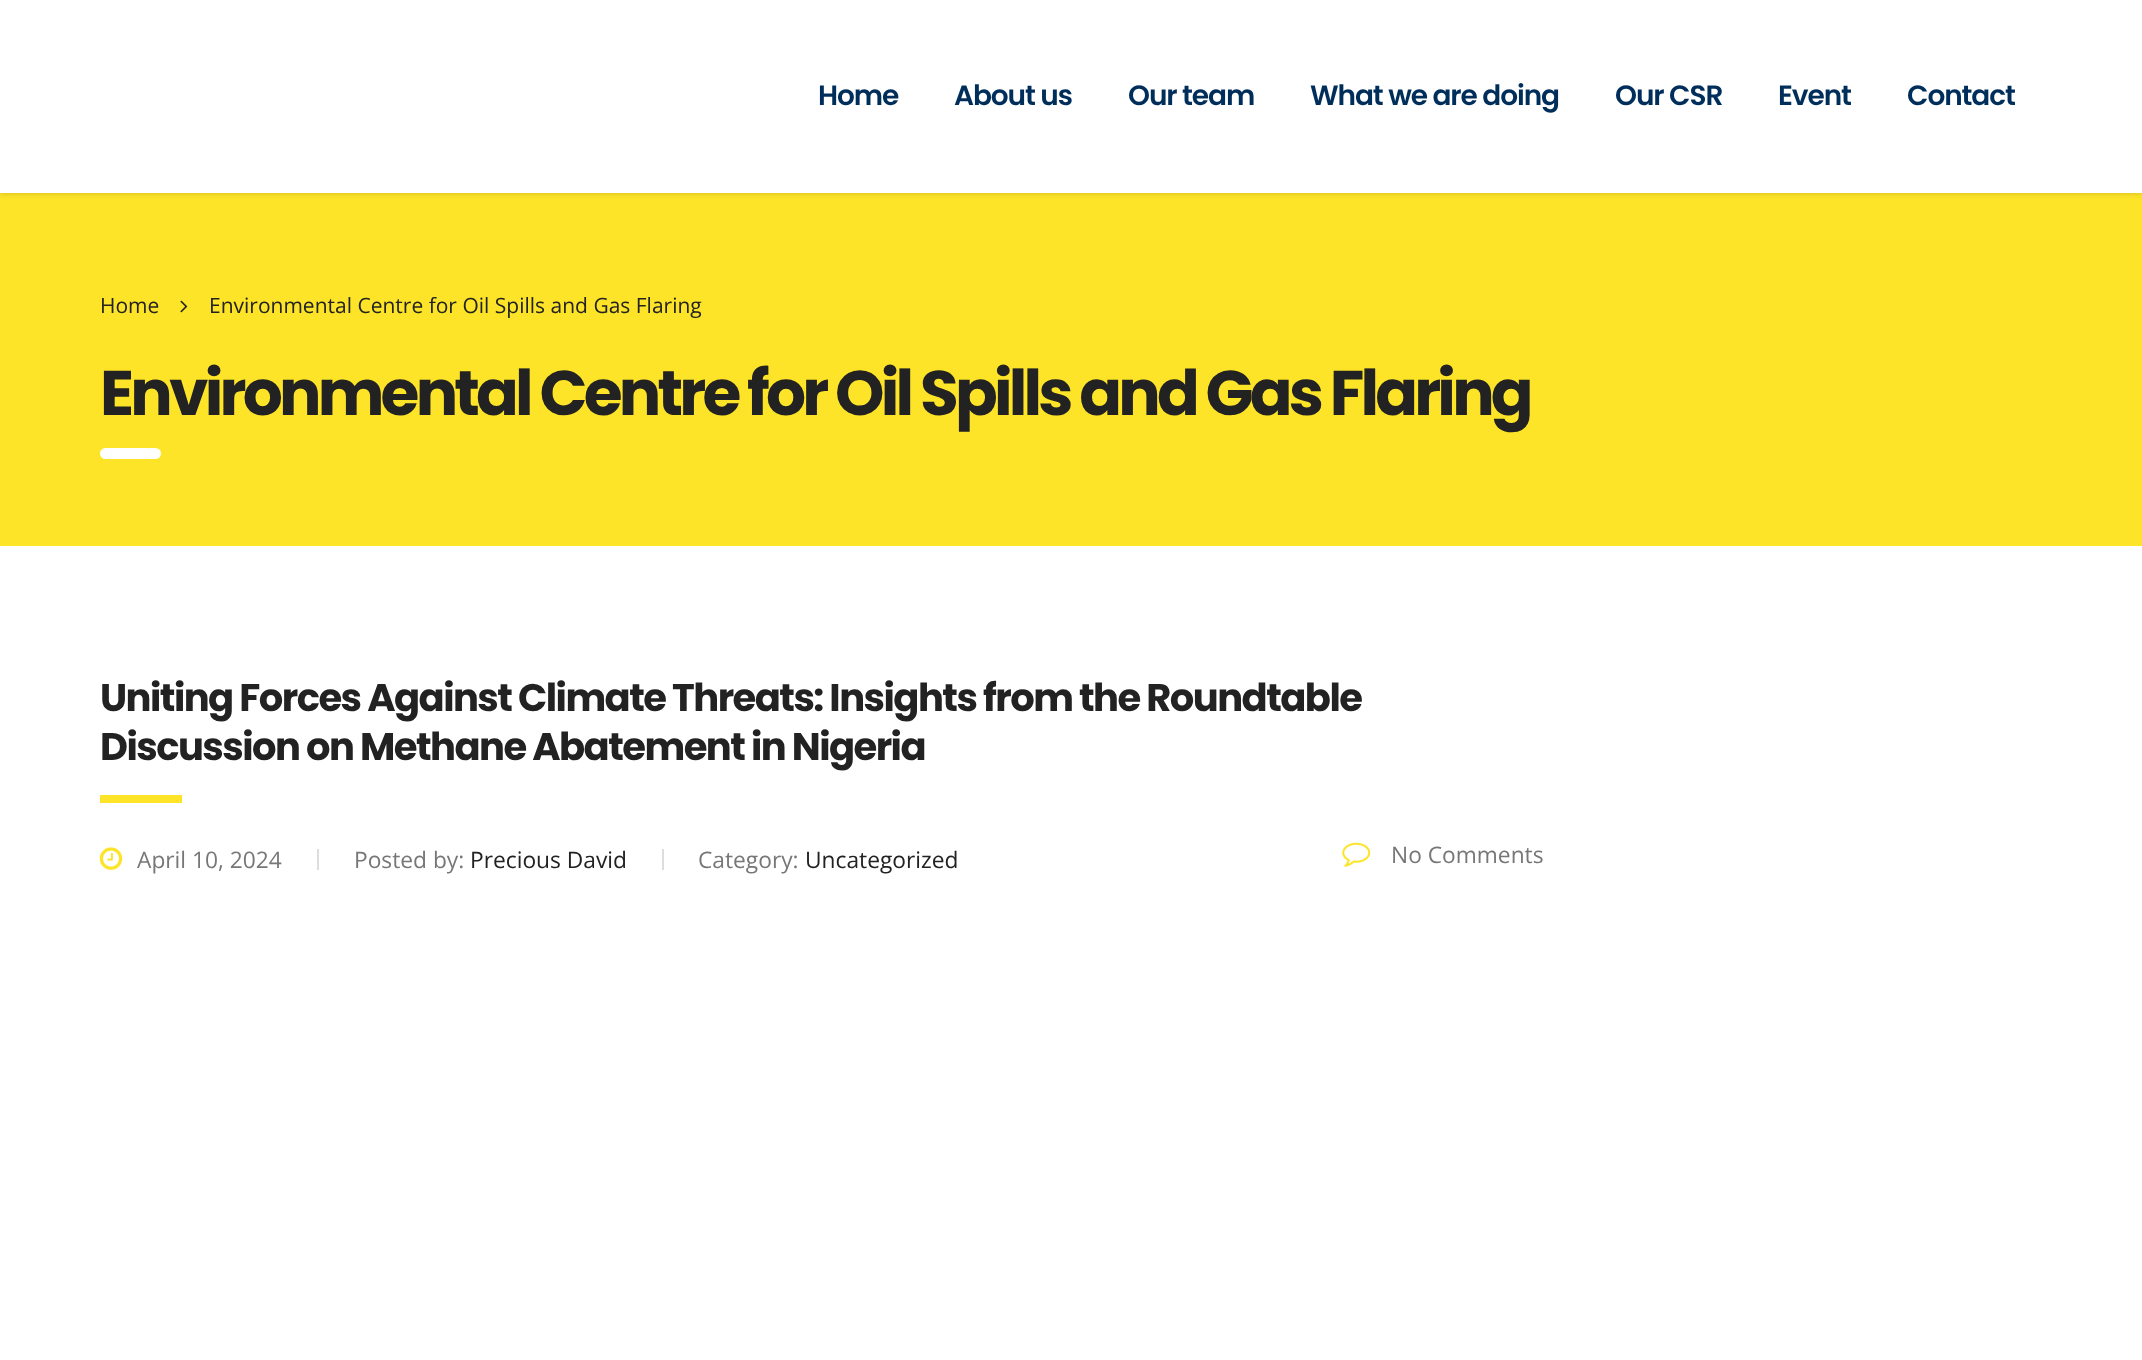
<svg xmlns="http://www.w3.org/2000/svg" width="2142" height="1360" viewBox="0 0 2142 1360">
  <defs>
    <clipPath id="clip1"><path d="M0 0H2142V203H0ZM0 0H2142V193H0Z" clip-rule="evenodd"/></clipPath>
  </defs>
  <rect width="100%" height="100%" fill="rgb(255,255,255)"/>
  <rect x="0" y="193" width="2142" height="353" fill="rgb(253,228,40)"/>
  <g clip-path="url(#clip1)">
    <rect x="0" y="2" width="2142" height="192" fill="rgba(0,0,0,0.15)" filter="blur(2.5px)"/>
  </g>
  <rect x="1" y="192" width="2140" height="1" fill="rgba(255,255,255,0.3)"/>
  <g font-family="Poppins" font-size="28" font-weight="600" letter-spacing="-1.1" fill="rgb(0,46,91)">
    <text x="818" y="105">Home</text>
    <text x="954" y="105">About us</text>
    <text x="1128" y="105">Our team</text>
    <text x="1310" y="105">What we are doing</text>
    <text x="1615" y="105">Our CSR</text>
    <text x="1778" y="105">Event</text>
    <text x="1907" y="105">Contact</text>
  </g>
  <text x="100" y="313" font-family="Open Sans" font-size="21" fill="rgb(34,34,34)">Home</text>
  <image x="180" y="300" width="8" height="13" href="pic1.png"/>
  <text x="209" y="313" font-family="Open Sans" font-size="21" fill="rgb(34,34,34)">Environmental Centre for Oil Spills and Gas Flaring</text>
  <text x="100" y="415" font-family="Poppins" font-size="63" font-weight="bold" letter-spacing="-3.78" fill="rgb(34,34,34)">Environmental Centre for Oil Spills and Gas Flaring</text>
  <rect x="100" y="448" width="61" height="11" rx="5.5" fill="rgb(255,255,255)"/>
  <g font-family="Poppins" font-size="38.5" font-weight="bold" letter-spacing="-1.55" fill="rgb(34,34,34)">
    <text>
      <tspan x="100" y="711">Uniting Forces Against Climate Threats: Insights from the Roundtable</tspan>
      <tspan x="100" y="760">Discussion on Methane Abatement in Nigeria</tspan>
    </text>
  </g>
  <rect x="100" y="795" width="82" height="8" fill="rgb(253,228,40)"/>
  <image x="99" y="847" width="24" height="23" href="pic2.png"/>
  <text x="137" y="868" font-family="Open Sans" font-size="22.75" fill="rgb(119,119,119)">April 10, 2024</text>
  <rect x="317" y="849" width="2" height="21" fill="rgb(221,221,221)"/>
  <text x="354" y="868" font-family="Open Sans" font-size="22.75" fill="rgb(119,119,119)">Posted by:</text>
  <text x="470" y="868" font-family="Open Sans" font-size="22.75" fill="rgb(34,34,34)">Precious David</text>
  <rect x="662" y="849" width="2" height="21" fill="rgb(221,221,221)"/>
  <text x="698" y="868" font-family="Open Sans" font-size="22.75" fill="rgb(119,119,119)">Category:</text>
  <text x="805" y="868" font-family="Open Sans" font-size="22.75" fill="rgb(34,34,34)">Uncategorized</text>
  <image x="1342" y="842" width="29" height="25" href="pic3.png"/>
  <text x="1391" y="863" font-family="Open Sans" font-size="22.75" fill="rgb(119,119,119)">No Comments</text>
</svg>
